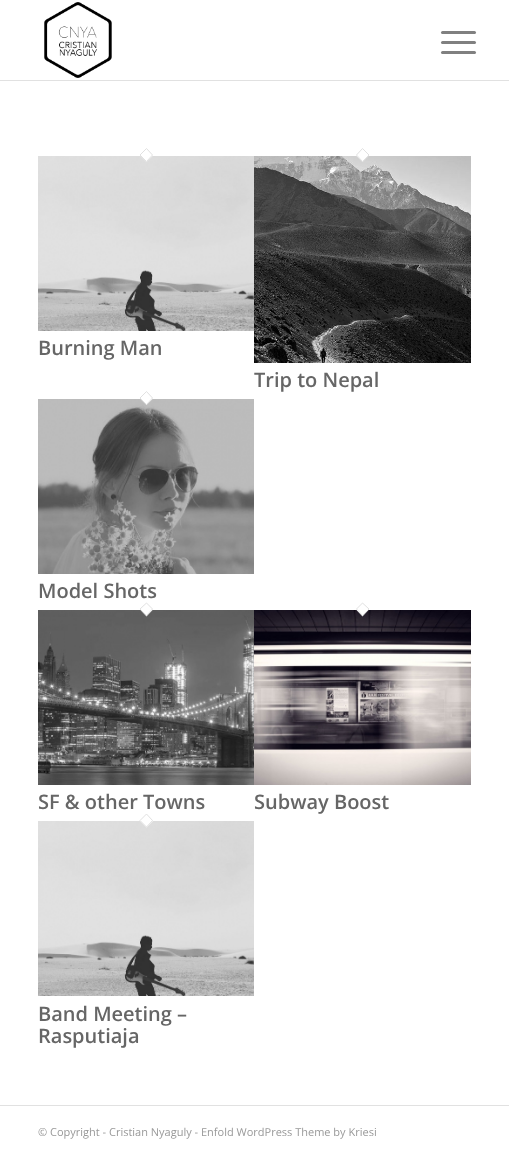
<svg xmlns="http://www.w3.org/2000/svg" width="509" height="1171" viewBox="0 0 509 1171">
  <rect width="100%" height="100%" fill="rgb(255,255,255)"/>
  <rect x="0" y="80" width="509" height="1" fill="rgb(225,225,225)"/>
  <image x="44" y="2" width="68" height="76" href="pic1.png"/>
  <rect x="441" y="41" width="35" height="3" rx="1.5" fill="rgb(128,128,128)"/>
  <rect x="441" y="31" width="35" height="3" rx="1.5" fill="rgb(128,128,128)"/>
  <rect x="441" y="51" width="35" height="3" rx="1.5" fill="rgb(128,128,128)"/>
  <image x="38" y="156" width="216" height="175" href="pic2.png"/>
  <path d="M146.5 148L153.5 155L146.5 162L139.5 155Z" fill="rgb(255,255,255)"/>
  <path d="M146.5 148.5L152.5 155L146.5 161.5L140 155Z" fill="none" stroke="rgb(225,225,225)"/>
  <text x="38" y="355" font-family="Open Sans" font-size="20" font-weight="600" fill="rgb(102,102,102)">Burning Man</text>
  <image x="254" y="156" width="217" height="207" href="pic3.png"/>
  <path d="M362.5 148L369.5 155L362.5 162L355.5 155Z" fill="rgb(255,255,255)"/>
  <path d="M362.5 148.5L369 155L362.5 161.5L356.5 155Z" fill="none" stroke="rgb(225,225,225)"/>
  <text x="254" y="387" font-family="Open Sans" font-size="20" font-weight="600" fill="rgb(102,102,102)">Trip to Nepal</text>
  <image x="38" y="399" width="216" height="175" href="pic4.png"/>
  <path d="M146.5 391L153.5 398L146.5 405L139.5 398Z" fill="rgb(255,255,255)"/>
  <path d="M146.5 391.5L152.5 398L146.5 404.5L140 398Z" fill="none" stroke="rgb(225,225,225)"/>
  <text x="38" y="598" font-family="Open Sans" font-size="20" font-weight="600" fill="rgb(102,102,102)">Model Shots</text>
  <image x="38" y="610" width="216" height="175" href="pic5.png"/>
  <path d="M146.5 602L153.5 609L146.5 616.5L139.5 609Z" fill="rgb(255,255,255)"/>
  <path d="M146.5 603L152.5 609L146.5 615.5L140 609Z" fill="none" stroke="rgb(225,225,225)"/>
  <text x="38" y="809" font-family="Open Sans" font-size="20" font-weight="600" fill="rgb(102,102,102)">SF &amp; other Towns</text>
  <image x="254" y="610" width="217" height="175" href="pic6.png"/>
  <path d="M362.5 602L369.5 609L362.5 616.5L355.5 609Z" fill="rgb(255,255,255)"/>
  <path d="M362.5 603L369 609L362.5 615.5L356.5 609Z" fill="none" stroke="rgb(225,225,225)"/>
  <text x="254" y="809" font-family="Open Sans" font-size="20" font-weight="600" fill="rgb(102,102,102)">Subway Boost</text>
  <image x="38" y="821" width="216" height="175" href="pic2.png"/>
  <path d="M146.5 813.5L153.5 820.5L146.5 827.5L139.5 820.5Z" fill="rgb(255,255,255)"/>
  <path d="M146.5 814L152.5 820.5L146.5 827L140 820.5Z" fill="none" stroke="rgb(225,225,225)"/>
  <g font-family="Open Sans" font-size="20" font-weight="600" fill="rgb(102,102,102)">
    <text>
      <tspan x="38" y="1021">Band Meeting –</tspan>
      <tspan x="38" y="1043">Rasputiaja</tspan>
    </text>
  </g>
  <rect x="0" y="1105" width="509" height="1" fill="rgb(225,225,225)"/>
  <text x="38" y="1136" font-family="Open Sans" font-size="11" fill="rgb(153,153,153)">© Copyright - Cristian Nyaguly - Enfold WordPress Theme by Kriesi</text>
</svg>
